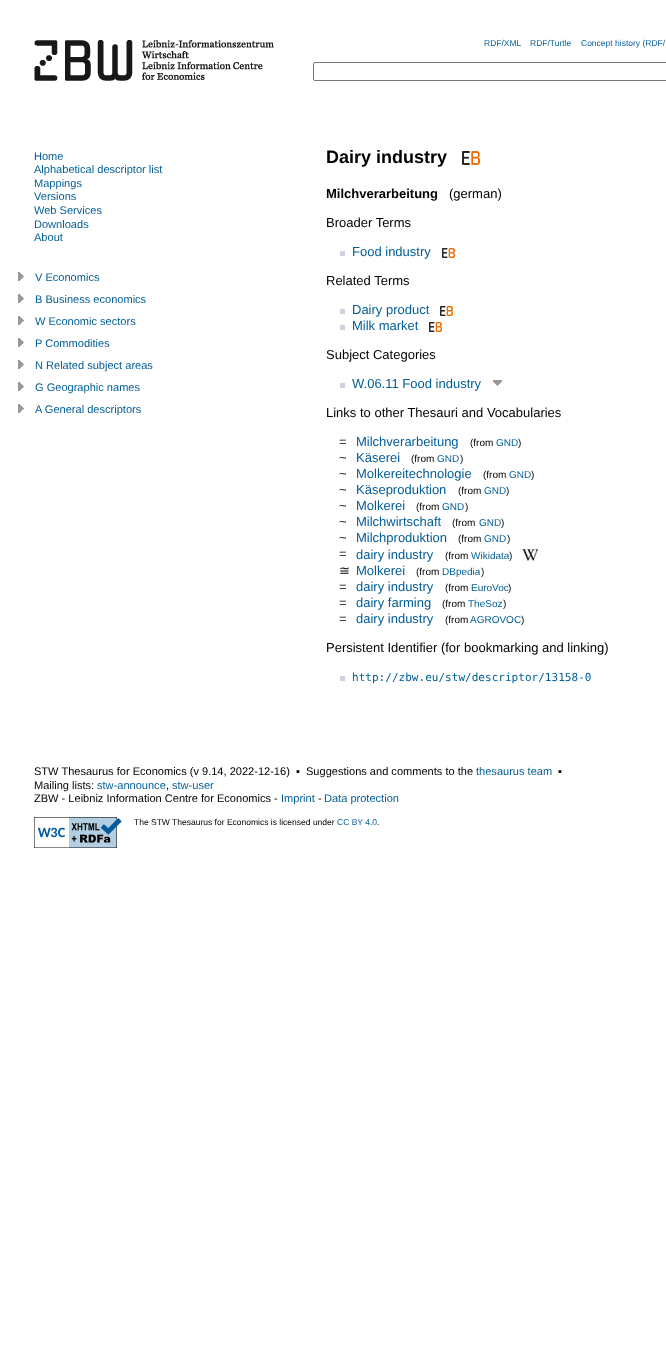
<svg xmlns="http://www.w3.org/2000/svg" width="666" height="1357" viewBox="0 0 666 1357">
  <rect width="100%" height="100%" fill="rgb(255,255,255)"/>
  <image x="34" y="40" width="240" height="56" href="pic1.png"/>
  <g font-family="Liberation Sans" font-size="8.5" fill="rgb(0,93,149)">
    <text x="484" y="46">RDF/XML</text>
    <text x="530" y="46">RDF/Turtle</text>
    <text x="581" y="46">Concept history (RDF/</text>
  </g>
  <rect x="313.5" y="62.5" width="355" height="18" rx="1.5" fill="none" stroke="rgb(118,118,118)"/>
  <g font-family="Liberation Sans" font-size="11.05" fill="rgb(0,93,149)">
    <text>
      <tspan x="34" y="160">Home</tspan>
      <tspan x="34" y="173">Alphabetical descriptor list</tspan>
      <tspan x="34" y="187">Mappings</tspan>
      <tspan x="34" y="200">Versions</tspan>
      <tspan x="34" y="214">Web Services</tspan>
      <tspan x="34" y="228">Downloads</tspan>
      <tspan x="34" y="241">About</tspan>
    </text>
  </g>
  <image x="18" y="272" width="6" height="9" href="pic2.png"/>
  <text x="35" y="281" font-family="Liberation Sans" font-size="11.05" fill="rgb(0,93,149)">V Economics</text>
  <image x="18" y="294" width="6" height="9" href="pic3.png"/>
  <text x="35" y="303" font-family="Liberation Sans" font-size="11.05" fill="rgb(0,93,149)">B Business economics</text>
  <image x="18" y="316" width="6" height="9" href="pic3.png"/>
  <text x="35" y="325" font-family="Liberation Sans" font-size="11.05" fill="rgb(0,93,149)">W Economic sectors</text>
  <image x="18" y="338" width="6" height="9" href="pic3.png"/>
  <text x="35" y="347" font-family="Liberation Sans" font-size="11.05" fill="rgb(0,93,149)">P Commodities</text>
  <image x="18" y="360" width="6" height="9" href="pic3.png"/>
  <text x="35" y="369" font-family="Liberation Sans" font-size="11.05" fill="rgb(0,93,149)">N Related subject areas</text>
  <image x="18" y="382" width="6" height="9" href="pic3.png"/>
  <text x="35" y="391" font-family="Liberation Sans" font-size="11.05" fill="rgb(0,93,149)">G Geographic names</text>
  <image x="18" y="404" width="6" height="9" href="pic3.png"/>
  <text x="35" y="413" font-family="Liberation Sans" font-size="11.05" fill="rgb(0,93,149)">A General descriptors</text>
  <text x="326" y="163" font-family="Liberation Sans" font-size="18" font-weight="bold" fill="rgb(0,0,0)">Dairy industry</text>
  <image x="462" y="151" width="18" height="14" href="pic4.png"/>
  <text x="326" y="198" font-family="Liberation Sans" font-size="13" font-weight="bold" fill="rgb(0,0,0)">Milchverarbeitung</text>
  <g font-family="Liberation Sans" font-size="13" fill="rgb(0,0,0)">
    <text x="449" y="198">(german)</text>
    <text x="326" y="227">Broader Terms</text>
  </g>
  <rect x="340" y="251" width="5" height="5" fill="rgb(209,207,221)"/>
  <text x="352" y="256" font-family="Liberation Sans" font-size="13" fill="rgb(0,93,149)">Food industry</text>
  <image x="442" y="248" width="13" height="10" href="pic5.png"/>
  <text x="326" y="285" font-family="Liberation Sans" font-size="13" fill="rgb(0,0,0)">Related Terms</text>
  <rect x="340" y="309" width="5" height="5" fill="rgb(209,207,221)"/>
  <text x="352" y="314" font-family="Liberation Sans" font-size="13" fill="rgb(0,93,149)">Dairy product</text>
  <image x="440" y="306" width="13" height="10" href="pic5.png"/>
  <rect x="340" y="325" width="5" height="5" fill="rgb(209,207,221)"/>
  <text x="352" y="330" font-family="Liberation Sans" font-size="13" fill="rgb(0,93,149)">Milk market</text>
  <image x="429" y="322" width="13" height="10" href="pic5.png"/>
  <text x="326" y="359" font-family="Liberation Sans" font-size="13" fill="rgb(0,0,0)">Subject Categories</text>
  <rect x="340" y="383" width="5" height="5" fill="rgb(209,207,221)"/>
  <text x="352" y="388" font-family="Liberation Sans" font-size="13" fill="rgb(0,93,149)">W.06.11 Food industry</text>
  <image x="493" y="380" width="9" height="6" href="pic6.png"/>
  <g font-family="Liberation Sans" font-size="13" fill="rgb(0,0,0)">
    <text x="326" y="417">Links to other Thesauri and Vocabularies</text>
    <text x="339" y="446">=</text>
  </g>
  <text x="356" y="446" font-family="Liberation Sans" font-size="13" fill="rgb(0,93,149)">Milchverarbeitung</text>
  <text x="470" y="446" font-family="Liberation Sans" font-size="10" fill="rgb(0,0,0)">(from</text>
  <text x="496" y="446" font-family="Liberation Sans" font-size="10" fill="rgb(0,93,149)">GND</text>
  <text x="518" y="446" font-family="Liberation Sans" font-size="10" fill="rgb(0,0,0)">)</text>
  <text x="339" y="462" font-family="Liberation Sans" font-size="13" fill="rgb(0,0,0)">~</text>
  <text x="356" y="462" font-family="Liberation Sans" font-size="13" fill="rgb(0,93,149)">Käserei</text>
  <text x="411" y="462" font-family="Liberation Sans" font-size="10" fill="rgb(0,0,0)">(from</text>
  <text x="437" y="462" font-family="Liberation Sans" font-size="10" fill="rgb(0,93,149)">GND</text>
  <text x="460" y="462" font-family="Liberation Sans" font-size="10" fill="rgb(0,0,0)">)</text>
  <text x="339" y="478" font-family="Liberation Sans" font-size="13" fill="rgb(0,0,0)">~</text>
  <text x="356" y="478" font-family="Liberation Sans" font-size="13" fill="rgb(0,93,149)">Molkereitechnologie</text>
  <text x="483" y="478" font-family="Liberation Sans" font-size="10" fill="rgb(0,0,0)">(from</text>
  <text x="509" y="478" font-family="Liberation Sans" font-size="10" fill="rgb(0,93,149)">GND</text>
  <text x="531" y="478" font-family="Liberation Sans" font-size="10" fill="rgb(0,0,0)">)</text>
  <text x="339" y="494" font-family="Liberation Sans" font-size="13" fill="rgb(0,0,0)">~</text>
  <text x="356" y="494" font-family="Liberation Sans" font-size="13" fill="rgb(0,93,149)">Käseproduktion</text>
  <text x="458" y="494" font-family="Liberation Sans" font-size="10" fill="rgb(0,0,0)">(from</text>
  <text x="484" y="494" font-family="Liberation Sans" font-size="10" fill="rgb(0,93,149)">GND</text>
  <text x="506" y="494" font-family="Liberation Sans" font-size="10" fill="rgb(0,0,0)">)</text>
  <text x="339" y="510" font-family="Liberation Sans" font-size="13" fill="rgb(0,0,0)">~</text>
  <text x="356" y="510" font-family="Liberation Sans" font-size="13" fill="rgb(0,93,149)">Molkerei</text>
  <text x="416" y="510" font-family="Liberation Sans" font-size="10" fill="rgb(0,0,0)">(from</text>
  <text x="442" y="510" font-family="Liberation Sans" font-size="10" fill="rgb(0,93,149)">GND</text>
  <text x="465" y="510" font-family="Liberation Sans" font-size="10" fill="rgb(0,0,0)">)</text>
  <text x="339" y="526" font-family="Liberation Sans" font-size="13" fill="rgb(0,0,0)">~</text>
  <text x="356" y="526" font-family="Liberation Sans" font-size="13" fill="rgb(0,93,149)">Milchwirtschaft</text>
  <text x="452" y="526" font-family="Liberation Sans" font-size="10" fill="rgb(0,0,0)">(from</text>
  <text x="479" y="526" font-family="Liberation Sans" font-size="10" fill="rgb(0,93,149)">GND</text>
  <text x="501" y="526" font-family="Liberation Sans" font-size="10" fill="rgb(0,0,0)">)</text>
  <text x="339" y="542" font-family="Liberation Sans" font-size="13" fill="rgb(0,0,0)">~</text>
  <text x="356" y="542" font-family="Liberation Sans" font-size="13" fill="rgb(0,93,149)">Milchproduktion</text>
  <text x="458" y="542" font-family="Liberation Sans" font-size="10" fill="rgb(0,0,0)">(from</text>
  <text x="484" y="542" font-family="Liberation Sans" font-size="10" fill="rgb(0,93,149)">GND</text>
  <text x="507" y="542" font-family="Liberation Sans" font-size="10" fill="rgb(0,0,0)">)</text>
  <text x="339" y="558" font-family="Liberation Sans" font-size="13" fill="rgb(0,0,0)">=</text>
  <text x="356" y="559" font-family="Liberation Sans" font-size="13" fill="rgb(0,93,149)">dairy industry</text>
  <text x="445" y="559" font-family="Liberation Sans" font-size="10" fill="rgb(0,0,0)">(from</text>
  <text x="471" y="559" font-family="Liberation Sans" font-size="10" fill="rgb(0,93,149)">Wikidata</text>
  <text x="509" y="559" font-family="Liberation Sans" font-size="10" fill="rgb(0,0,0)">)</text>
  <image x="522" y="549" width="16" height="12" href="pic7.png"/>
  <text x="339" y="575" font-family="DejaVu Sans" font-size="13" fill="rgb(0,0,0)">≅</text>
  <text x="356" y="575" font-family="Liberation Sans" font-size="13" fill="rgb(0,93,149)">Molkerei</text>
  <text x="416" y="575" font-family="Liberation Sans" font-size="10" fill="rgb(0,0,0)">(from</text>
  <text x="442" y="575" font-family="Liberation Sans" font-size="10" fill="rgb(0,93,149)">DBpedia</text>
  <text x="481" y="575" font-family="Liberation Sans" font-size="10" fill="rgb(0,0,0)">)</text>
  <text x="339" y="591" font-family="Liberation Sans" font-size="13" fill="rgb(0,0,0)">=</text>
  <text x="356" y="591" font-family="Liberation Sans" font-size="13" fill="rgb(0,93,149)">dairy industry</text>
  <text x="445" y="591" font-family="Liberation Sans" font-size="10" fill="rgb(0,0,0)">(from</text>
  <text x="471" y="591" font-family="Liberation Sans" font-size="10" fill="rgb(0,93,149)">EuroVoc</text>
  <text x="508" y="591" font-family="Liberation Sans" font-size="10" fill="rgb(0,0,0)">)</text>
  <text x="339" y="607" font-family="Liberation Sans" font-size="13" fill="rgb(0,0,0)">=</text>
  <text x="356" y="607" font-family="Liberation Sans" font-size="13" fill="rgb(0,93,149)">dairy farming</text>
  <text x="442" y="607" font-family="Liberation Sans" font-size="10" fill="rgb(0,0,0)">(from</text>
  <text x="468" y="607" font-family="Liberation Sans" font-size="10" fill="rgb(0,93,149)">TheSoz</text>
  <text x="503" y="607" font-family="Liberation Sans" font-size="10" fill="rgb(0,0,0)">)</text>
  <text x="339" y="623" font-family="Liberation Sans" font-size="13" fill="rgb(0,0,0)">=</text>
  <text x="356" y="623" font-family="Liberation Sans" font-size="13" fill="rgb(0,93,149)">dairy industry</text>
  <text x="445" y="623" font-family="Liberation Sans" font-size="10" fill="rgb(0,0,0)">(from</text>
  <text x="470" y="623" font-family="Liberation Sans" font-size="10" fill="rgb(0,93,149)">AGROVOC</text>
  <text x="521" y="623" font-family="Liberation Sans" font-size="10" fill="rgb(0,0,0)">)</text>
  <text x="326" y="652" font-family="Liberation Sans" font-size="13" fill="rgb(0,0,0)">Persistent Identifier (for bookmarking and linking)</text>
  <rect x="340" y="676" width="5" height="5" fill="rgb(209,207,221)"/>
  <text x="352" y="681" font-family="DejaVu Sans Mono" font-size="11.05" fill="rgb(0,93,149)">http://zbw.eu/stw/descriptor/13158-0</text>
  <g font-family="Liberation Sans" font-size="11.05" fill="rgb(0,0,0)">
    <text x="34" y="775">STW Thesaurus for Economics (v 9.14, 2022-12-16)</text>
    <text x="296" y="775">▪</text>
    <text x="306" y="775">Suggestions and comments to the</text>
  </g>
  <text x="476" y="775" font-family="Liberation Sans" font-size="11.05" fill="rgb(0,93,149)">thesaurus team</text>
  <g font-family="Liberation Sans" font-size="11.05" fill="rgb(0,0,0)">
    <text x="558" y="775">▪</text>
    <text x="34" y="789">Mailing lists:</text>
  </g>
  <text x="97" y="789" font-family="Liberation Sans" font-size="11.05" fill="rgb(0,93,149)">stw-announce</text>
  <text x="166" y="789" font-family="Liberation Sans" font-size="11.05" fill="rgb(0,0,0)">,</text>
  <text x="172" y="789" font-family="Liberation Sans" font-size="11.05" fill="rgb(0,93,149)">stw-user</text>
  <text x="34" y="802" font-family="Liberation Sans" font-size="11.05" fill="rgb(0,0,0)">ZBW - Leibniz Information Centre for Economics -</text>
  <text x="281" y="802" font-family="Liberation Sans" font-size="11.05" fill="rgb(0,93,149)">Imprint</text>
  <text x="318" y="802" font-family="Liberation Sans" font-size="11.05" fill="rgb(0,0,0)">-</text>
  <text x="324" y="802" font-family="Liberation Sans" font-size="11.05" fill="rgb(0,93,149)">Data protection</text>
  <image x="34" y="817" width="88" height="31" href="pic8.png"/>
  <text x="134" y="825" font-family="Liberation Sans" font-size="8.5" fill="rgb(0,0,0)">The STW Thesaurus for Economics is licensed under</text>
  <text x="337" y="825" font-family="Liberation Sans" font-size="8.5" fill="rgb(0,93,149)">CC BY 4.0</text>
  <text x="377" y="825" font-family="Liberation Sans" font-size="8.5" fill="rgb(0,0,0)">.</text>
</svg>
